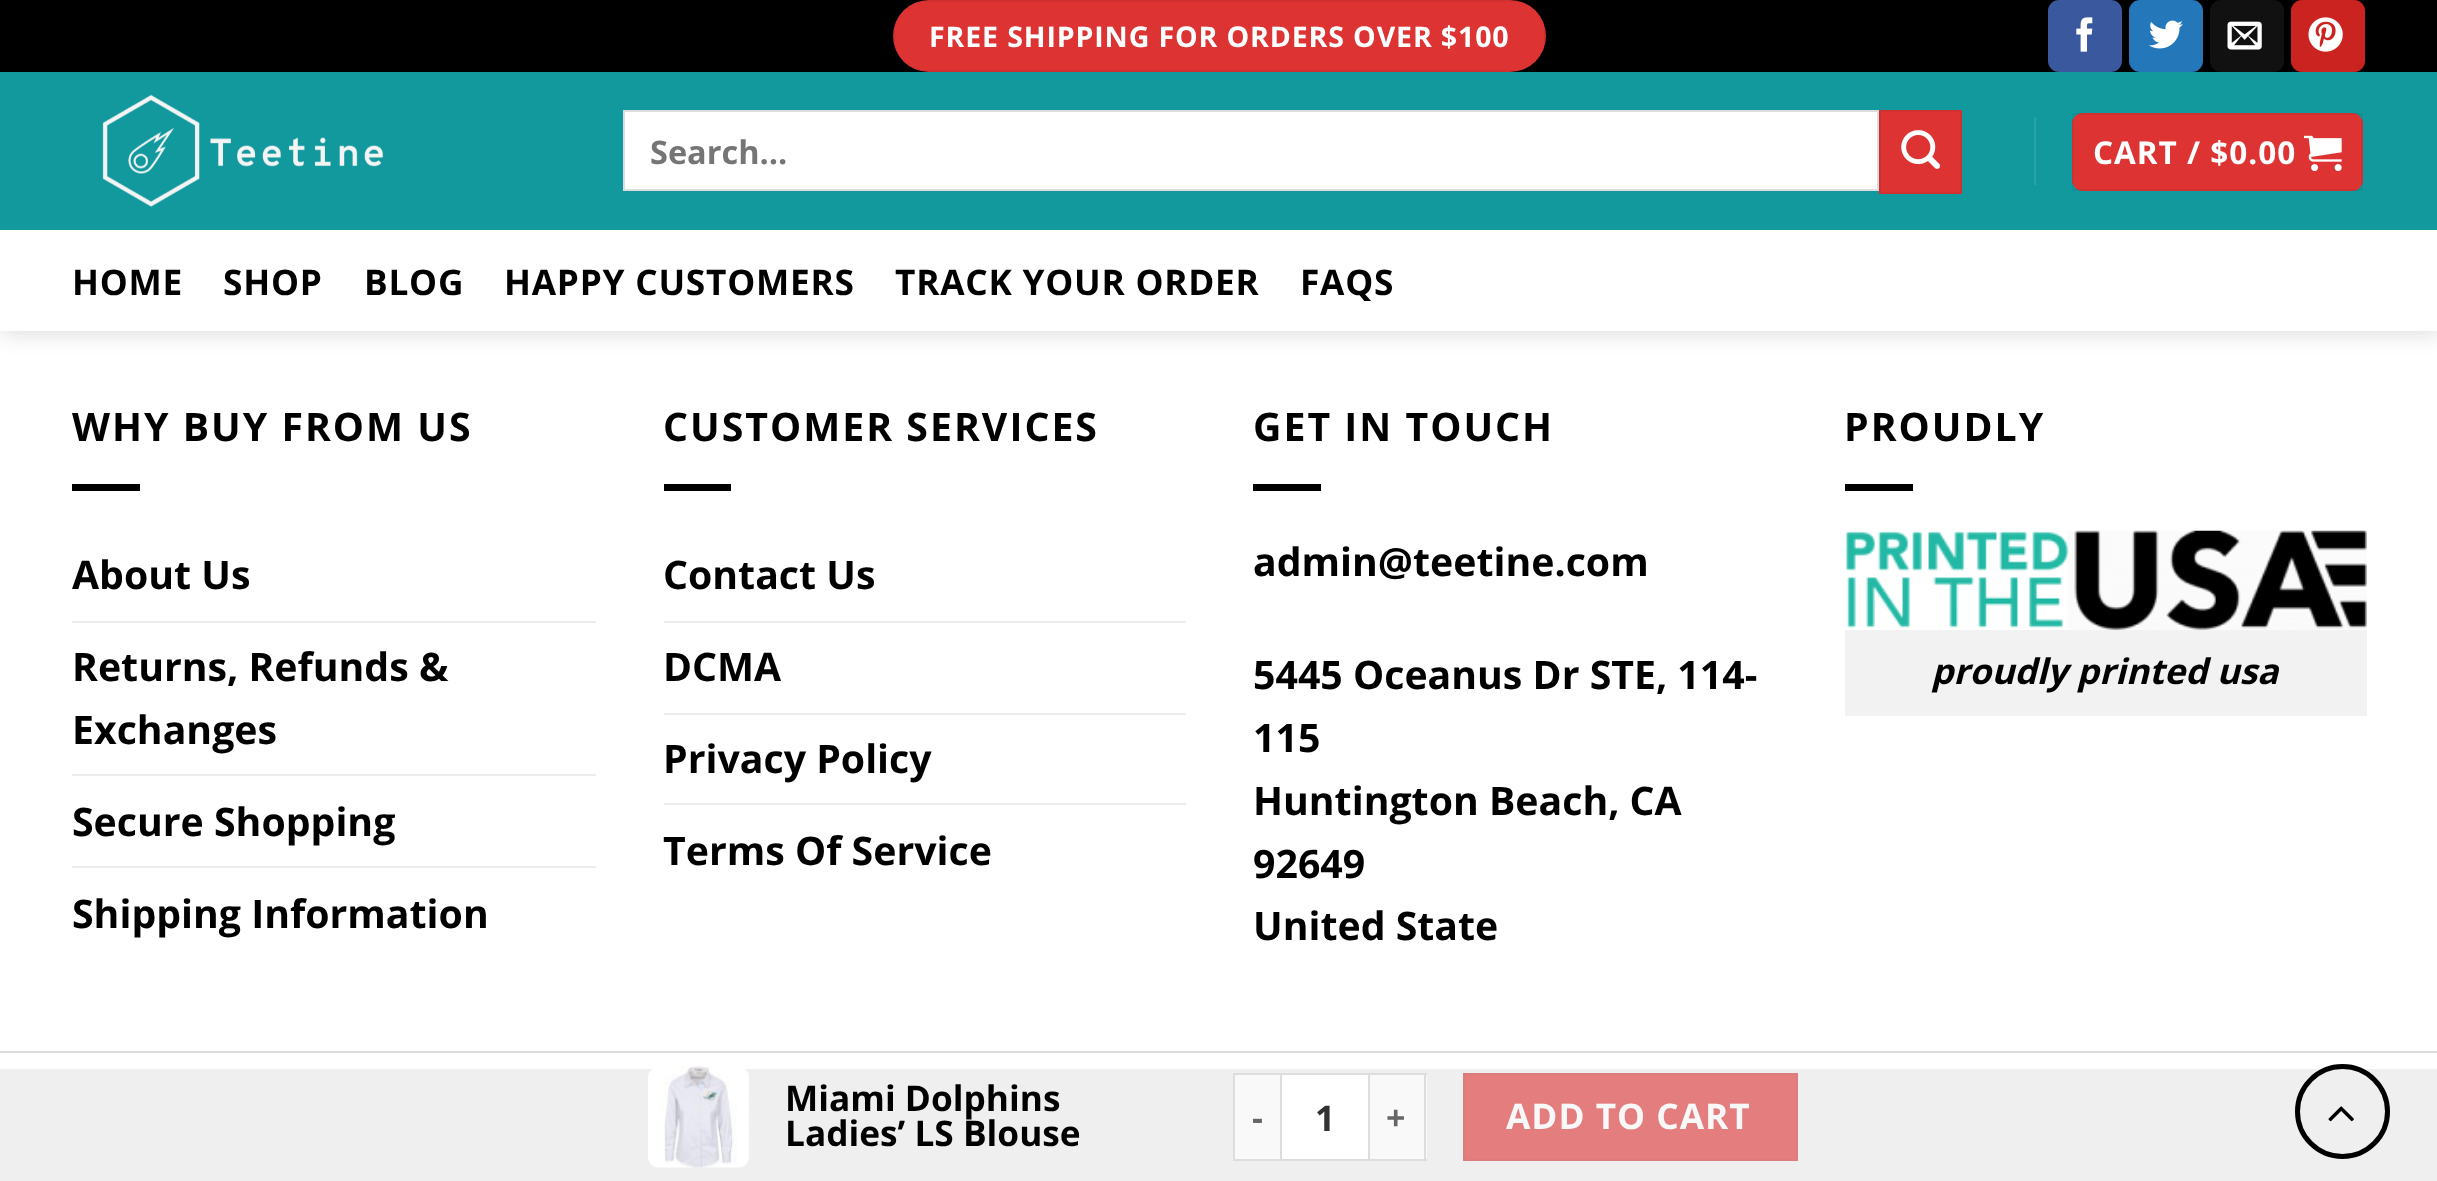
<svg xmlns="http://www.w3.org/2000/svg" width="2437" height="1181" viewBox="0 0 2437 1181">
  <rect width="100%" height="100%" fill="rgb(255,255,255)"/>
  <rect x="2" y="2" width="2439" height="331" fill="rgba(0,0,0,0.15)" filter="blur(11px)"/>
  <rect x="0" y="0" width="2437" height="72" fill="rgb(0,0,0)"/>
  <rect x="893" y="0" width="653" height="72" rx="36" fill="rgb(221,51,51)"/>
  <rect x="894" y="1" width="651" height="70" fill="none" stroke="rgba(0,0,0,0.05)" stroke-width="2"/>
  <text x="929" y="47" font-family="Open Sans" font-size="28.55" font-weight="bold" letter-spacing="0.85" fill="rgb(255,255,255)">FREE SHIPPING FOR ORDERS OVER $100</text>
  <rect x="2049" y="1" width="72" height="70" rx="10" fill="rgb(58,88,157)" stroke="rgb(58,88,157)" stroke-width="2"/>
  <image x="2076" y="17" width="17" height="35" href="pic1.png"/>
  <rect x="2130" y="1" width="72" height="70" rx="10" fill="rgb(36,120,186)" stroke="rgb(36,120,186)" stroke-width="2"/>
  <image x="2149" y="20" width="34" height="29" href="pic2.png"/>
  <rect x="2211" y="1" width="72" height="70" rx="10" fill="rgb(17,17,17)" stroke="rgb(17,17,17)" stroke-width="2"/>
  <image x="2227" y="21" width="35" height="29" href="pic3.png"/>
  <rect x="2292" y="1" width="72" height="70" rx="10" fill="rgb(203,35,32)" stroke="rgb(203,35,32)" stroke-width="2"/>
  <image x="2308" y="17" width="35" height="35" href="pic4.png"/>
  <rect x="0" y="72" width="2437" height="158" fill="rgb(17,153,158)"/>
  <image x="102" y="94" width="282" height="113" href="pic5.png"/>
  <rect x="624" y="111" width="1254" height="79" fill="rgb(255,255,255)" stroke="rgb(221,221,221)" stroke-width="2"/>
  <text x="650" y="164" font-family="Open Sans" font-size="32.5" font-weight="bold" fill="rgb(117,117,117)">Search…</text>
  <rect x="1880" y="111" width="81" height="82" fill="rgb(221,51,51)" stroke="rgb(210,48,48)" stroke-width="2"/>
  <image x="1901" y="130" width="39" height="39" href="pic6.png"/>
  <rect x="2034" y="117" width="2" height="68" fill="rgb(41,163,168)"/>
  <rect x="2072" y="113" width="291" height="78" rx="11" fill="rgb(221,51,51)"/>
  <rect x="2073" y="114" width="289" height="76" fill="none" stroke="rgba(0,0,0,0.05)" stroke-width="2"/>
  <text x="2093" y="164" font-family="Open Sans" font-size="31.5" font-weight="bold" letter-spacing="1" fill="rgb(255,255,255)">CART / $0.00</text>
  <image x="2304" y="135" width="38" height="37" href="pic7.png"/>
  <rect x="0" y="230" width="2437" height="101" fill="rgb(255,255,255)"/>
  <g font-family="Open Sans" font-size="35.25" font-weight="bold" letter-spacing="0.75" fill="rgb(0,0,0)">
    <text x="72" y="295">HOME</text>
    <text x="223" y="295">SHOP</text>
    <text x="364" y="295">BLOG</text>
    <text x="504" y="295">HAPPY CUSTOMERS</text>
    <text x="895" y="295">TRACK YOUR ORDER</text>
    <text x="1300" y="295">FAQS</text>
  </g>
  <text x="72" y="441" font-family="Open Sans" font-size="39.25" font-weight="bold" letter-spacing="2" fill="rgb(0,0,0)">WHY BUY FROM US</text>
  <rect x="72" y="484" width="68" height="7" fill="rgb(0,0,0)"/>
  <text x="72" y="589" font-family="Open Sans" font-size="39.25" font-weight="bold" fill="rgb(0,0,0)">About Us</text>
  <rect x="72" y="621" width="524" height="2" fill="rgb(236,236,236)"/>
  <g font-family="Open Sans" font-size="39.25" font-weight="bold" fill="rgb(0,0,0)">
    <text>
      <tspan x="72" y="681">Returns, Refunds &amp;</tspan>
      <tspan x="72" y="744">Exchanges</tspan>
    </text>
  </g>
  <rect x="72" y="774" width="524" height="2" fill="rgb(236,236,236)"/>
  <text x="72" y="836" font-family="Open Sans" font-size="39.25" font-weight="bold" fill="rgb(0,0,0)">Secure Shopping</text>
  <rect x="72" y="866" width="524" height="2" fill="rgb(236,236,236)"/>
  <text x="72" y="928" font-family="Open Sans" font-size="39.25" font-weight="bold" fill="rgb(0,0,0)">Shipping Information</text>
  <text x="663" y="441" font-family="Open Sans" font-size="39.25" font-weight="bold" letter-spacing="2" fill="rgb(0,0,0)">CUSTOMER SERVICES</text>
  <rect x="664" y="484" width="67" height="7" fill="rgb(0,0,0)"/>
  <text x="663" y="589" font-family="Open Sans" font-size="39.25" font-weight="bold" fill="rgb(0,0,0)">Contact Us</text>
  <rect x="664" y="621" width="522" height="2" fill="rgb(236,236,236)"/>
  <text x="663" y="681" font-family="Open Sans" font-size="39.25" font-weight="bold" fill="rgb(0,0,0)">DCMA</text>
  <rect x="664" y="713" width="522" height="2" fill="rgb(236,236,236)"/>
  <text x="663" y="773" font-family="Open Sans" font-size="39.25" font-weight="bold" fill="rgb(0,0,0)">Privacy Policy</text>
  <rect x="664" y="803" width="522" height="2" fill="rgb(236,236,236)"/>
  <text x="663" y="865" font-family="Open Sans" font-size="39.25" font-weight="bold" fill="rgb(0,0,0)">Terms Of Service</text>
  <text x="1253" y="441" font-family="Open Sans" font-size="39.25" font-weight="bold" letter-spacing="2" fill="rgb(0,0,0)">GET IN TOUCH</text>
  <rect x="1253" y="484" width="68" height="7" fill="rgb(0,0,0)"/>
  <g font-family="Open Sans" font-size="39.25" font-weight="bold" fill="rgb(0,0,0)">
    <text x="1253" y="576">admin@teetine.com</text>
    <text>
      <tspan x="1253" y="689">5445 Oceanus Dr STE, 114-</tspan>
      <tspan x="1253" y="752">115</tspan>
      <tspan x="1253" y="815">Huntington Beach, CA</tspan>
      <tspan x="1253" y="878">92649</tspan>
      <tspan x="1253" y="940">United State</tspan>
    </text>
  </g>
  <text x="1844" y="441" font-family="Open Sans" font-size="39.25" font-weight="bold" letter-spacing="2" fill="rgb(0,0,0)">PROUDLY</text>
  <rect x="1845" y="484" width="68" height="7" fill="rgb(0,0,0)"/>
  <image x="1845" y="530" width="522" height="100" href="pic8.png"/>
  <rect x="1845" y="630" width="522" height="86" fill="rgb(242,242,242)"/>
  <text x="1931" y="684" font-family="Open Sans" font-size="35.25" font-weight="bold" font-style="italic" fill="rgb(0,0,0)">proudly printed usa</text>
  <rect x="0" y="1069" width="2437" height="112" fill="rgb(239,239,239)"/>
  <circle cx="2342.5" cy="1111.5" r="45" fill="none" stroke="rgb(0,0,0)" stroke-width="5"/>
  <image x="2328" y="1106" width="26" height="16" href="pic9.png"/>
  <rect x="0" y="1051" width="2437" height="2" fill="rgb(221,221,221)"/>
  <image x="648" y="1066" width="101" height="102" href="pic10.png"/>
  <g font-family="Open Sans" font-size="35.25" font-weight="bold" fill="rgb(0,0,0)">
    <text>
      <tspan x="785" y="1111">Miami Dolphins</tspan>
      <tspan x="785" y="1146">Ladies’ LS Blouse</tspan>
    </text>
  </g>
  <rect x="1235" y="1075" width="45" height="84" fill="rgb(249,249,249)"/>
  <rect x="1233" y="1073" width="47" height="2" fill="rgb(221,221,221)"/>
  <rect x="1233" y="1159" width="47" height="2" fill="rgb(221,221,221)"/>
  <rect x="1233" y="1073" width="2" height="88" fill="rgb(221,221,221)"/>
  <text x="1252" y="1130" font-family="Open Sans" font-size="34" font-weight="bold" letter-spacing="1" fill="rgb(102,102,102)">-</text>
  <rect x="1281" y="1074" width="88" height="86" fill="rgb(255,255,255)" stroke="rgb(221,221,221)" stroke-width="2"/>
  <text x="1315" y="1131" font-family="Open Sans" font-size="35.25" font-weight="bold" fill="rgb(51,51,51)">1</text>
  <rect x="1370" y="1075" width="57" height="84" fill="rgb(249,249,249)"/>
  <rect x="1370" y="1073" width="57" height="2" fill="rgb(221,221,221)"/>
  <rect x="1424" y="1073" width="2" height="88" fill="rgb(221,221,221)"/>
  <rect x="1370" y="1159" width="57" height="2" fill="rgb(221,221,221)"/>
  <text x="1386" y="1130" font-family="Open Sans" font-size="34" font-weight="bold" letter-spacing="1" fill="rgb(102,102,102)">+</text>
  <rect x="1464" y="1074" width="333" height="86" fill="rgb(228,126,126)" stroke="rgb(221,124,124)" stroke-width="2"/>
  <text x="1506" y="1129" font-family="Open Sans" font-size="35.25" font-weight="bold" letter-spacing="1" fill="rgb(248,248,248)">ADD TO CART</text>
</svg>
